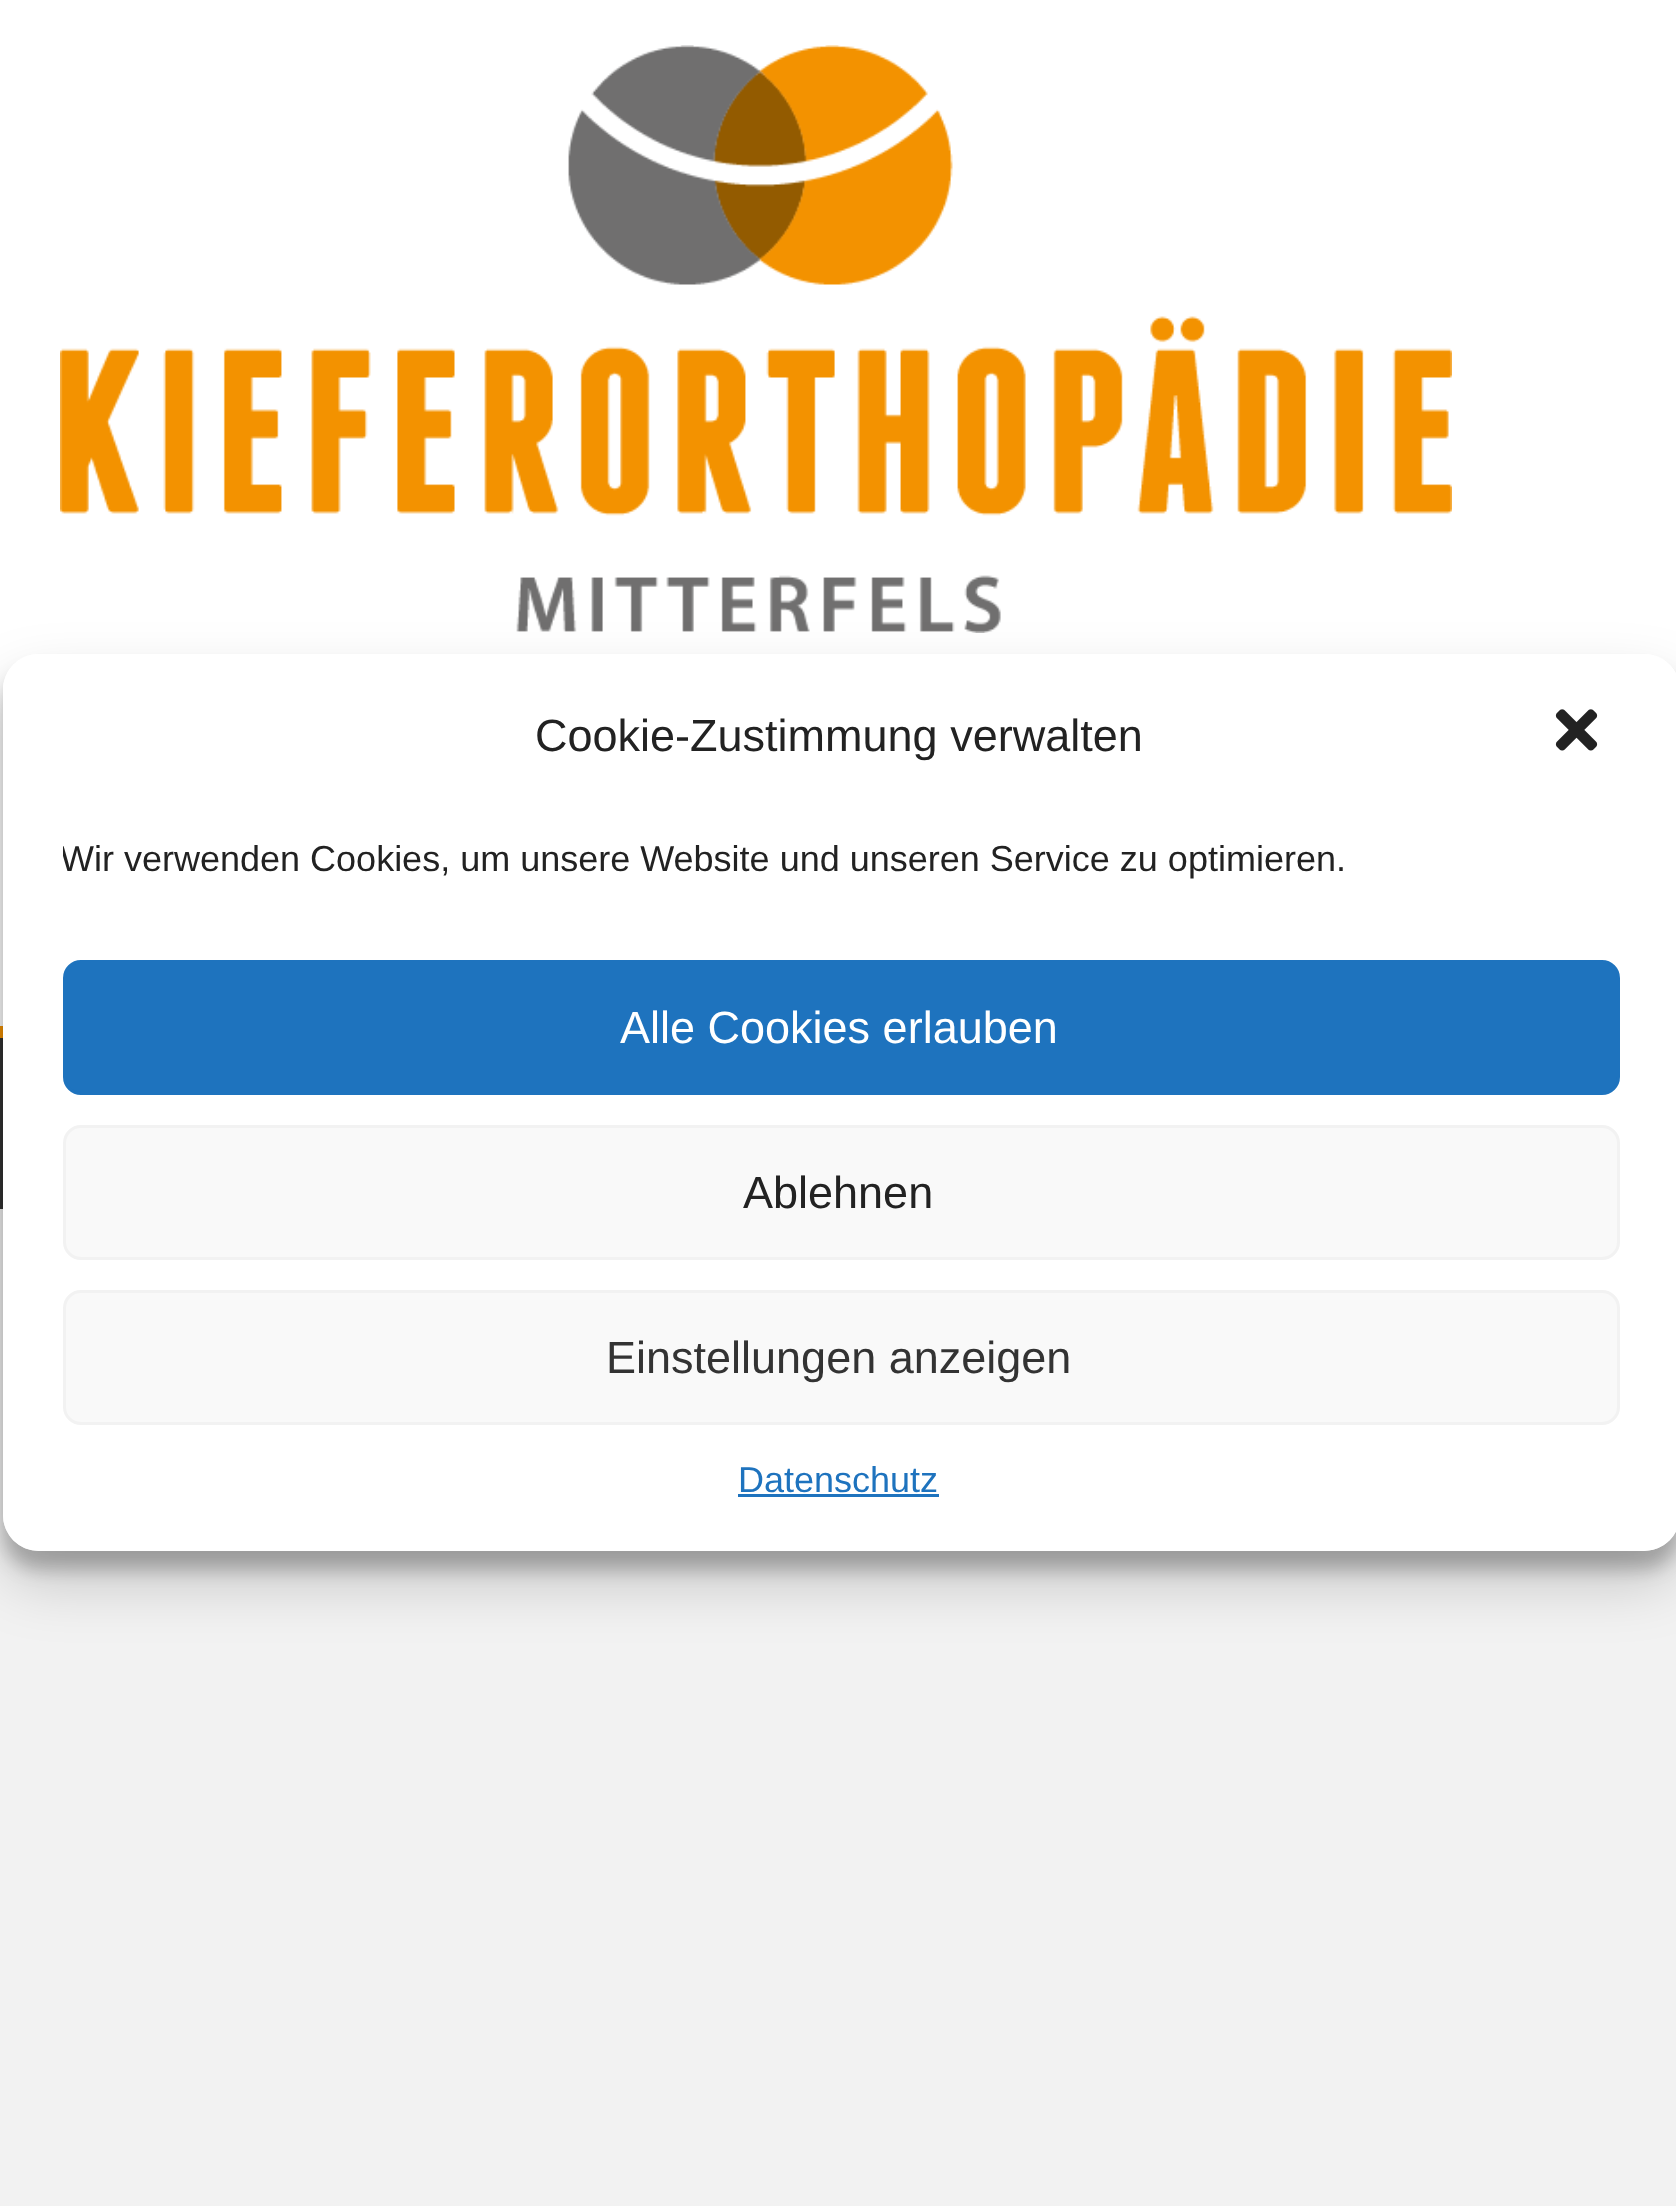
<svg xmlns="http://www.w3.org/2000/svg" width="1676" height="2206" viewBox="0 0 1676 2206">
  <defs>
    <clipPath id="clip1"><path d="M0 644H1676V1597H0ZM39 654H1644C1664 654 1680 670 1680 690V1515C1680 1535 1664 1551 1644 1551H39C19 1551 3 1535 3 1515V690C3 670 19 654 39 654Z" clip-rule="evenodd"/></clipPath>
    <clipPath id="clip2"><path d="M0 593H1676V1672H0ZM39 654H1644C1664 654 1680 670 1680 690V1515C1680 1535 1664 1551 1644 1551H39C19 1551 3 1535 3 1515V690C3 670 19 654 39 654Z" clip-rule="evenodd"/></clipPath>
    <clipPath id="clip3"><rect x="63" y="831" width="1557" height="69"/></clipPath>
  </defs>
  <rect width="100%" height="100%" fill="rgb(242,242,242)"/>
  <rect x="0" y="0" width="1676" height="681" fill="rgb(255,255,255)"/>
  <image x="60" y="45" width="1392" height="588" href="pic1.png"/>
  <rect x="0" y="681" width="5" height="345" fill="rgb(255,255,255)"/>
  <rect x="0" y="1038" width="3" height="171" fill="rgb(51,51,51)"/>
  <rect x="0" y="1026" width="3" height="12" fill="rgb(243,146,0)"/>
  <g clip-path="url(#clip1)">
    <rect x="3" y="672" width="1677" height="897" rx="36" fill="rgba(0,0,0,0.23)" filter="blur(9px)"/>
  </g>
  <g clip-path="url(#clip2)">
    <rect x="3" y="684" width="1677" height="897" rx="36" fill="rgba(0,0,0,0.19)" filter="blur(30px)"/>
  </g>
  <rect x="3" y="654" width="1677" height="897" rx="36" fill="rgb(255,255,255)"/>
  <text x="535" y="751" font-family="Liberation Sans" font-size="45" fill="rgb(34,34,34)">Cookie-Zustimmung verwalten</text>
  <image x="1555" y="709" width="43" height="42" href="pic2.png"/>
  <g clip-path="url(#clip3)">
    <text x="60" y="871" font-family="Liberation Sans" font-size="36" fill="rgb(34,34,34)">Wir verwenden Cookies, um unsere Website und unseren Service zu optimieren.</text>
  </g>
  <rect x="64.5" y="961.5" width="1554" height="132" rx="16.5" fill="rgb(30,115,190)" stroke="rgb(30,115,190)" stroke-width="3"/>
  <text x="620" y="1043" font-family="Liberation Sans" font-size="45" fill="rgb(255,255,255)">Alle Cookies erlauben</text>
  <rect x="64.5" y="1126.5" width="1554" height="132" rx="16.5" fill="rgb(249,249,249)" stroke="rgb(242,242,242)" stroke-width="3"/>
  <text x="743" y="1208" font-family="Liberation Sans" font-size="45" fill="rgb(34,34,34)">Ablehnen</text>
  <rect x="64.5" y="1291.5" width="1554" height="132" rx="16.5" fill="rgb(249,249,249)" stroke="rgb(242,242,242)" stroke-width="3"/>
  <text x="606" y="1373" font-family="Liberation Sans" font-size="45" fill="rgb(51,51,51)">Einstellungen anzeigen</text>
  <text x="738" y="1492" font-family="Liberation Sans" font-size="36" fill="rgb(30,115,190)">Datenschutz</text>
  <rect x="738" y="1494" width="201" height="3" fill="rgb(30,115,190)"/>
</svg>
